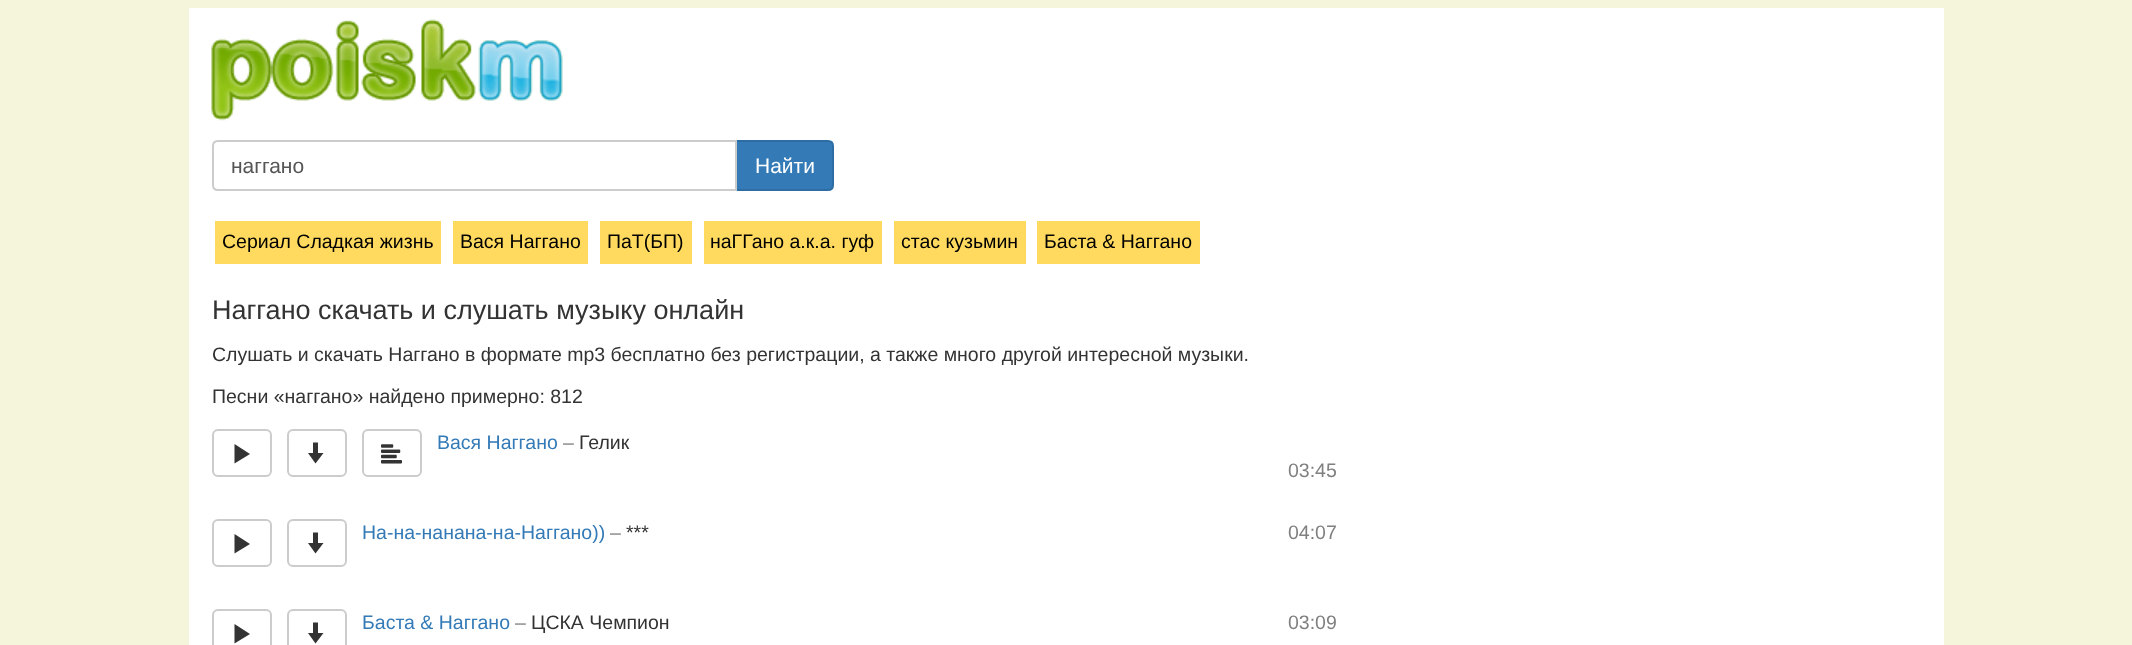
<svg xmlns="http://www.w3.org/2000/svg" width="2132" height="645" viewBox="0 0 2132 645">
  <rect width="100%" height="100%" fill="rgb(245,245,220)"/>
  <rect x="189" y="8" width="1755" height="637" fill="rgb(255,255,255)"/>
  <image x="211" y="19" width="352" height="102" href="pic1.png"/>
  <path d="M736 141H828C831 141 833 143 833 146V185C833 188 831 190 828 190H736Z" fill="rgb(51,122,183)" stroke="rgb(46,109,164)" stroke-width="2"/>
  <path d="M218 141H736V190H218C215 190 213 188 213 185V146C213 143 215 141 218 141Z" fill="rgb(255,255,255)" stroke="rgb(204,204,204)" stroke-width="2"/>
  <text x="231" y="173" font-family="Liberation Sans" font-size="21" fill="rgb(85,85,85)">наггано</text>
  <text x="755" y="173" font-family="Liberation Sans" font-size="21" fill="rgb(255,255,255)">Найти</text>
  <rect x="215" y="221" width="226" height="43" fill="rgb(255,218,95)"/>
  <text x="222" y="248" font-family="Liberation Sans" font-size="19.5" fill="rgb(0,0,0)">Сериал Сладкая жизнь</text>
  <rect x="453" y="221" width="135" height="43" fill="rgb(255,218,95)"/>
  <text x="460" y="248" font-family="Liberation Sans" font-size="19.5" fill="rgb(0,0,0)">Вася Наггано</text>
  <rect x="600" y="221" width="92" height="43" fill="rgb(255,218,95)"/>
  <text x="607" y="248" font-family="Liberation Sans" font-size="19.5" fill="rgb(0,0,0)">ПаТ(БП)</text>
  <rect x="704" y="221" width="178" height="43" fill="rgb(255,218,95)"/>
  <text x="710" y="248" font-family="Liberation Sans" font-size="19.5" fill="rgb(0,0,0)">наГГано а.к.а. гуф</text>
  <rect x="894" y="221" width="132" height="43" fill="rgb(255,218,95)"/>
  <text x="901" y="248" font-family="Liberation Sans" font-size="19.5" fill="rgb(0,0,0)">стас кузьмин</text>
  <rect x="1037" y="221" width="163" height="43" fill="rgb(255,218,95)"/>
  <text x="1044" y="248" font-family="Liberation Sans" font-size="19.5" fill="rgb(0,0,0)">Баста &amp; Наггано</text>
  <text x="212" y="319" font-family="Liberation Sans" font-size="27" fill="rgb(51,51,51)">Наггано скачать и слушать музыку онлайн</text>
  <g font-family="Liberation Sans" font-size="19.5" fill="rgb(51,51,51)">
    <text x="212" y="361">Cлушать и скачать Наггано в формате mp3 бесплатно без регистрации, а также много другой интересной музыки.</text>
    <text x="212" y="403">Песни «наггано» найдено примерно: 812</text>
  </g>
  <rect x="213" y="430" width="58" height="46" rx="5" fill="none" stroke="rgb(204,204,204)" stroke-width="2"/>
  <path d="M234.5 463.5L250 454L234.5 444Z" fill="rgb(51,51,51)"/>
  <rect x="288" y="430" width="58" height="46" rx="5" fill="none" stroke="rgb(204,204,204)" stroke-width="2"/>
  <path d="M308 453H313V442.5H318V453H323.5L315.5 463.5Z" fill="rgb(51,51,51)"/>
  <rect x="363" y="430" width="58" height="46" rx="5" fill="none" stroke="rgb(204,204,204)" stroke-width="2"/>
  <image x="381" y="444" width="21" height="20" href="pic2.png"/>
  <text x="437" y="449" font-family="Liberation Sans" font-size="19.5" fill="rgb(51,122,183)">Вася Наггано</text>
  <text x="563" y="449" font-family="Liberation Sans" font-size="19.5" fill="rgb(128,128,128)">–</text>
  <text x="579" y="449" font-family="Liberation Sans" font-size="19.5" fill="rgb(51,51,51)">Гелик</text>
  <text x="1288" y="477" font-family="Liberation Sans" font-size="19.5" fill="rgb(128,128,128)">03:45</text>
  <rect x="213" y="520" width="58" height="46" rx="5" fill="none" stroke="rgb(204,204,204)" stroke-width="2"/>
  <path d="M234.5 553.5L250 544L234.5 534Z" fill="rgb(51,51,51)"/>
  <rect x="288" y="520" width="58" height="46" rx="5" fill="none" stroke="rgb(204,204,204)" stroke-width="2"/>
  <path d="M308 543H313V532.5H318V543H323.5L315.5 553.5Z" fill="rgb(51,51,51)"/>
  <text x="362" y="539" font-family="Liberation Sans" font-size="19.5" fill="rgb(51,122,183)">На-на-нанана-на-Наггано))</text>
  <text x="626" y="539" font-family="Liberation Sans" font-size="19.5" fill="rgb(51,51,51)">***</text>
  <g font-family="Liberation Sans" font-size="19.5" fill="rgb(128,128,128)">
    <text x="610" y="539">–</text>
    <text x="1288" y="539">04:07</text>
  </g>
  <rect x="213" y="610" width="58" height="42" rx="5" fill="none" stroke="rgb(204,204,204)" stroke-width="2"/>
  <path d="M234.5 643.5L250 634L234.5 624Z" fill="rgb(51,51,51)"/>
  <rect x="288" y="610" width="58" height="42" rx="5" fill="none" stroke="rgb(204,204,204)" stroke-width="2"/>
  <path d="M308 633H313V622.5H318V633H323.5L315.5 643.5Z" fill="rgb(51,51,51)"/>
  <text x="362" y="629" font-family="Liberation Sans" font-size="19.5" fill="rgb(51,122,183)">Баста &amp; Наггано</text>
  <text x="515" y="629" font-family="Liberation Sans" font-size="19.5" fill="rgb(128,128,128)">–</text>
  <text x="531" y="629" font-family="Liberation Sans" font-size="19.5" fill="rgb(51,51,51)">ЦСКА Чемпион</text>
  <text x="1288" y="629" font-family="Liberation Sans" font-size="19.5" fill="rgb(128,128,128)">03:09</text>
</svg>
